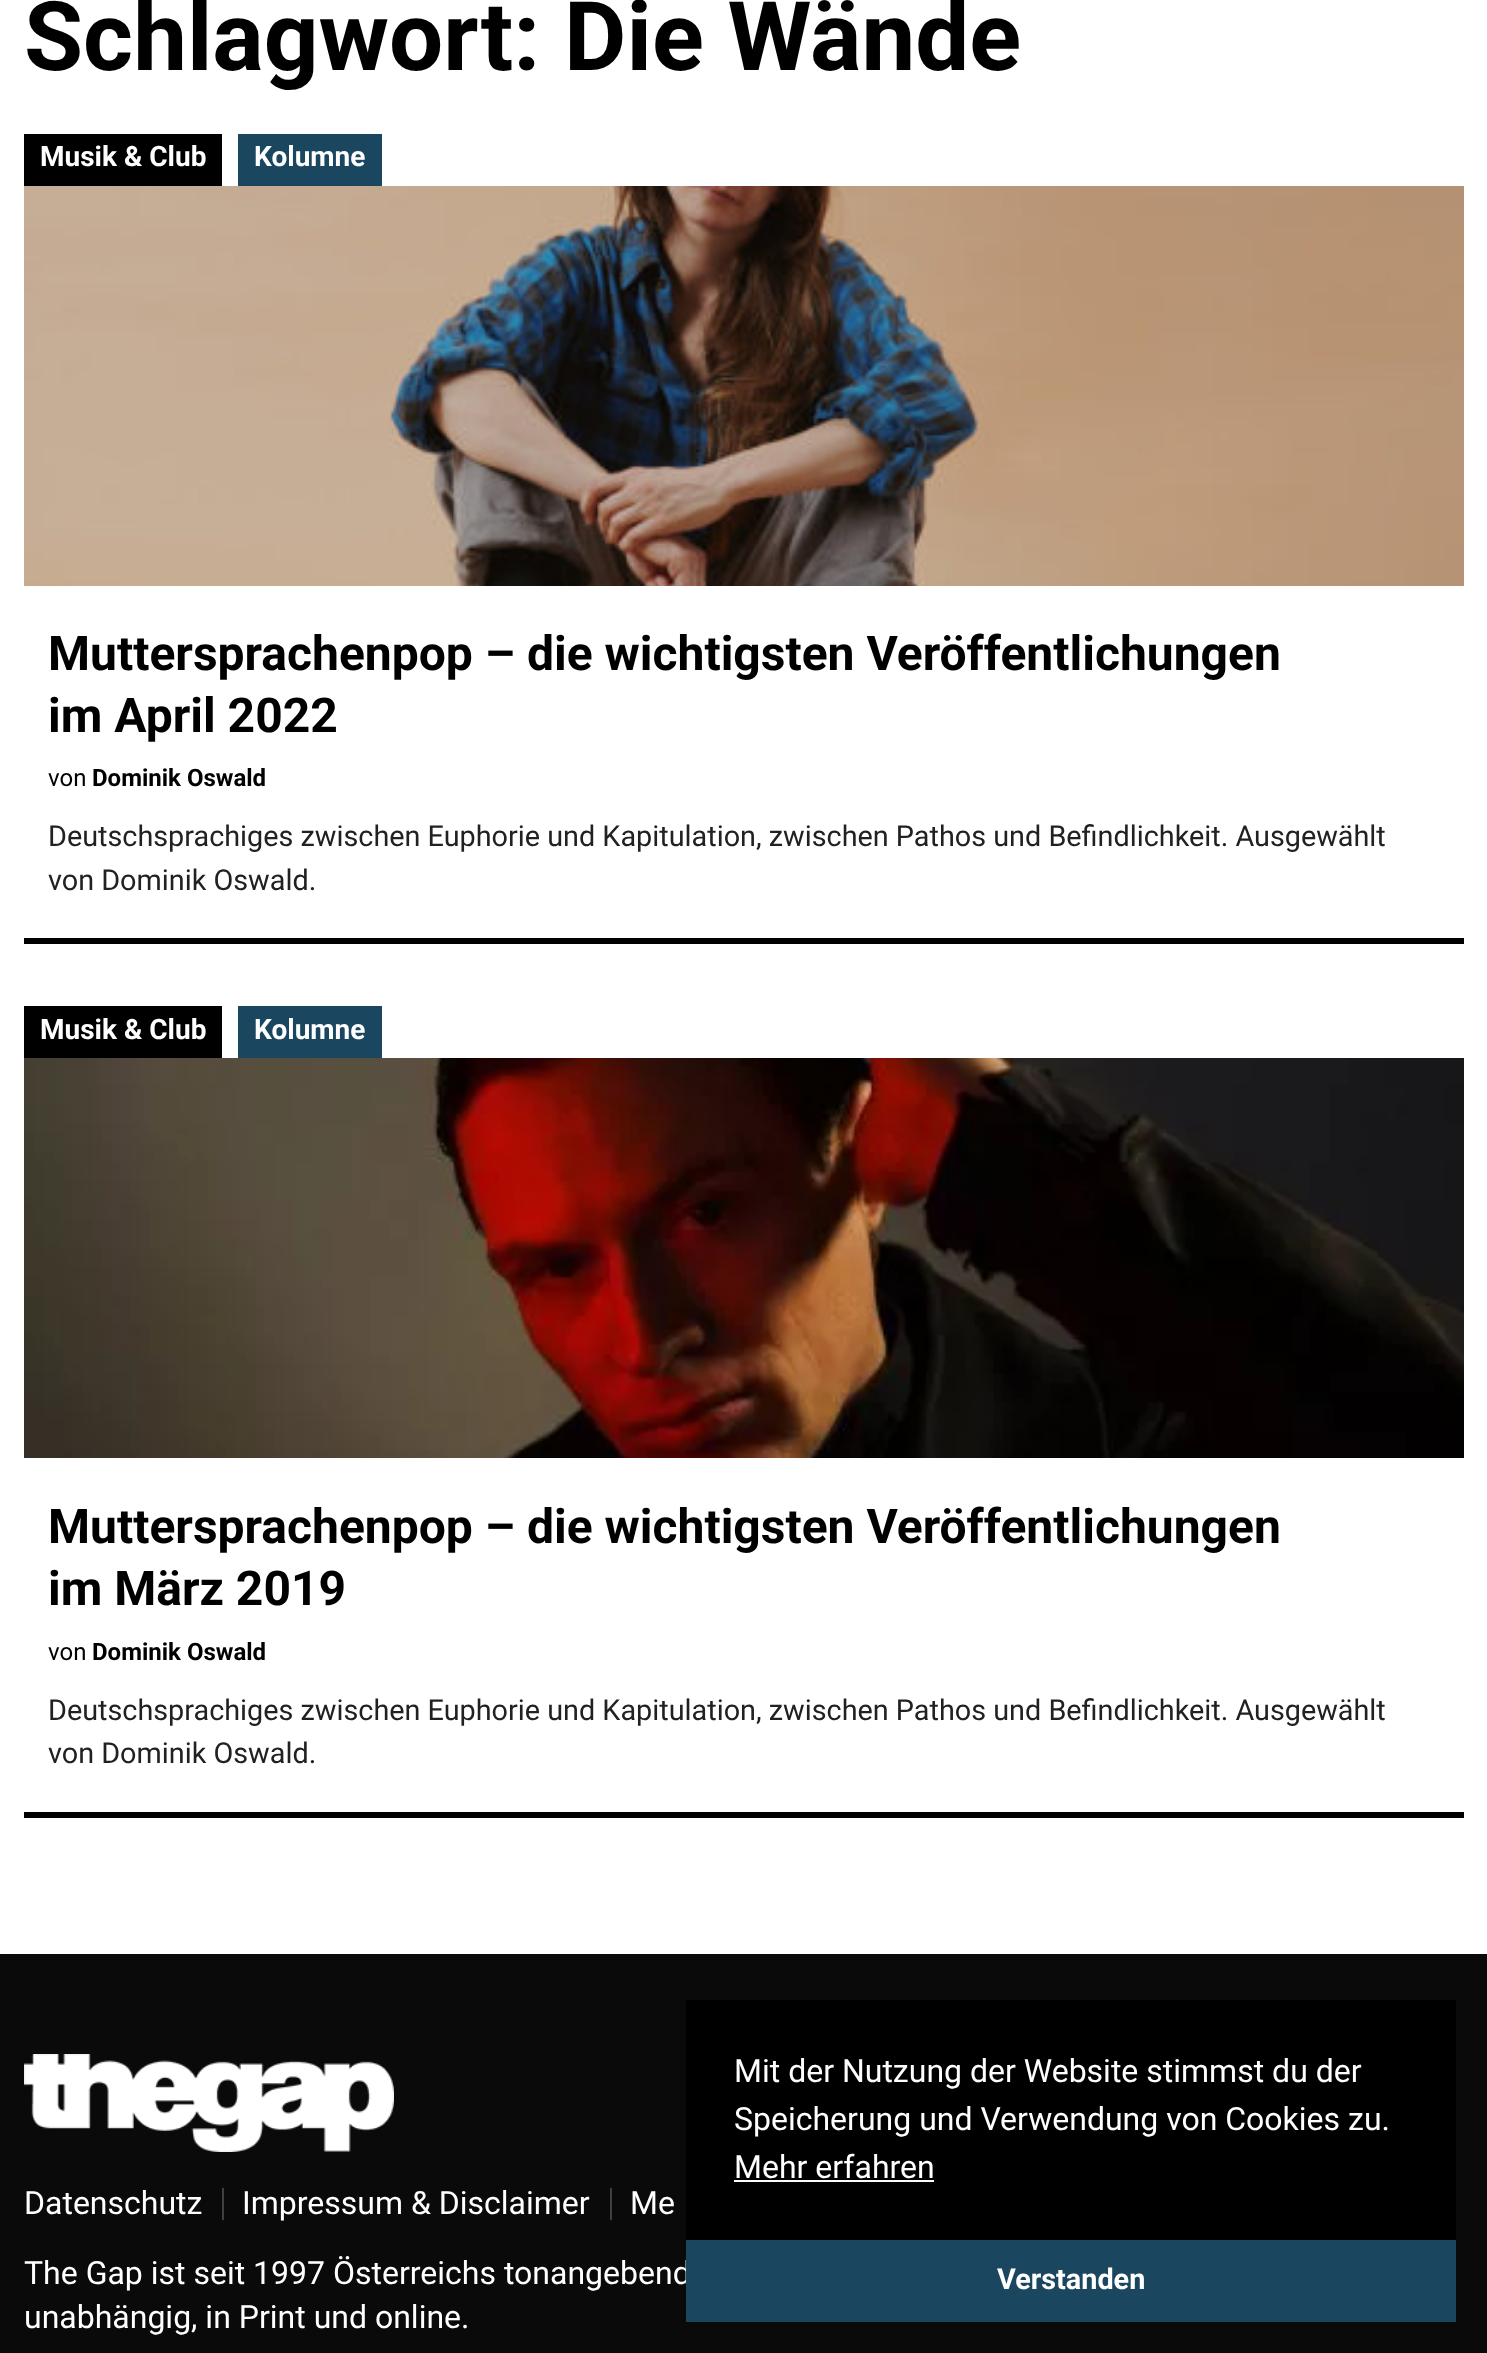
<svg xmlns="http://www.w3.org/2000/svg" width="1487" height="2353" viewBox="0 0 1487 2353">
  <rect width="100%" height="100%" fill="rgb(255,255,255)"/>
  <text x="24" y="70" font-family="Roboto" font-size="96" font-weight="bold" fill="rgb(0,0,0)">Schlagwort: Die Wände</text>
  <rect x="24" y="938" width="1440" height="6" fill="rgb(0,0,0)"/>
  <rect x="24" y="134" width="198" height="52" fill="rgb(0,0,0)"/>
  <text x="40" y="166" font-family="Roboto" font-size="28" font-weight="bold" fill="rgb(255,255,255)">Musik &amp; Club</text>
  <rect x="238" y="134" width="144" height="52" fill="rgb(26,70,95)"/>
  <text x="254" y="166" font-family="Roboto" font-size="28" font-weight="bold" fill="rgb(255,255,255)">Kolumne</text>
  <image x="24" y="186" width="1440" height="400" href="pic1.png"/>
  <g font-family="Roboto" font-size="48" font-weight="bold" fill="rgb(0,0,0)">
    <text>
      <tspan x="48" y="670">Muttersprachenpop – die wichtigsten Veröffentlichungen</tspan>
      <tspan x="48" y="732">im April 2022</tspan>
    </text>
  </g>
  <text x="48" y="786" font-family="Roboto" font-size="24" fill="rgb(0,0,0)">von</text>
  <text x="92" y="786" font-family="Roboto" font-size="24" font-weight="bold" fill="rgb(0,0,0)">Dominik Oswald</text>
  <g font-family="Roboto" font-size="28.8" fill="rgb(33,33,33)">
    <text>
      <tspan x="48" y="846">Deutschsprachiges zwischen Euphorie und Kapitulation, zwischen Pathos und Befindlichkeit. Ausgewählt</tspan>
      <tspan x="48" y="890">von Dominik Oswald.</tspan>
    </text>
  </g>
  <rect x="24" y="1812" width="1440" height="6" fill="rgb(0,0,0)"/>
  <rect x="24" y="1006" width="198" height="52" fill="rgb(0,0,0)"/>
  <text x="40" y="1039" font-family="Roboto" font-size="28" font-weight="bold" fill="rgb(255,255,255)">Musik &amp; Club</text>
  <rect x="238" y="1006" width="144" height="52" fill="rgb(26,70,95)"/>
  <text x="254" y="1039" font-family="Roboto" font-size="28" font-weight="bold" fill="rgb(255,255,255)">Kolumne</text>
  <image x="24" y="1058" width="1440" height="400" href="pic2.png"/>
  <g font-family="Roboto" font-size="48" font-weight="bold" fill="rgb(0,0,0)">
    <text>
      <tspan x="48" y="1543">Muttersprachenpop – die wichtigsten Veröffentlichungen</tspan>
      <tspan x="48" y="1605">im März 2019</tspan>
    </text>
  </g>
  <text x="48" y="1660" font-family="Roboto" font-size="24" fill="rgb(0,0,0)">von</text>
  <text x="92" y="1660" font-family="Roboto" font-size="24" font-weight="bold" fill="rgb(0,0,0)">Dominik Oswald</text>
  <g font-family="Roboto" font-size="28.8" fill="rgb(33,33,33)">
    <text>
      <tspan x="48" y="1720">Deutschsprachiges zwischen Euphorie und Kapitulation, zwischen Pathos und Befindlichkeit. Ausgewählt</tspan>
      <tspan x="48" y="1763">von Dominik Oswald.</tspan>
    </text>
  </g>
  <rect x="0" y="1954" width="1487" height="399" fill="rgb(10,10,10)"/>
  <image x="24" y="2054" width="370" height="98" href="pic3.png"/>
  <rect x="222" y="2188" width="2" height="32" fill="rgb(64,64,64)"/>
  <text x="24" y="2214" font-family="Roboto" font-size="32" fill="rgb(255,255,255)">Datenschutz</text>
  <rect x="610" y="2188" width="2" height="32" fill="rgb(64,64,64)"/>
  <g font-family="Roboto" font-size="32" fill="rgb(255,255,255)">
    <text x="242" y="2214">Impressum &amp; Disclaimer</text>
    <text x="630" y="2214">Me</text>
    <text>
      <tspan x="24" y="2284">The Gap ist seit 1997 Österreichs tonangebend</tspan>
      <tspan x="24" y="2328">unabhängig, in Print und online.</tspan>
    </text>
  </g>
  <rect x="686" y="2000" width="770" height="240" fill="rgb(0,0,0)"/>
  <g font-family="Roboto" font-size="32" fill="rgb(255,255,255)">
    <text>
      <tspan x="734" y="2082">Mit der Nutzung der Website stimmst du der</tspan>
      <tspan x="734" y="2130">Speicherung und Verwendung von Cookies zu.</tspan>
      <tspan x="734" y="2178">Mehr erfahren</tspan>
    </text>
  </g>
  <rect x="734" y="2180" width="200" height="2" fill="rgb(255,255,255)"/>
  <rect x="686" y="2240" width="770" height="82" fill="rgb(26,70,95)"/>
  <text x="997" y="2289" font-family="Roboto" font-size="28.8" font-weight="bold" fill="rgb(255,255,255)">Verstanden</text>
</svg>
